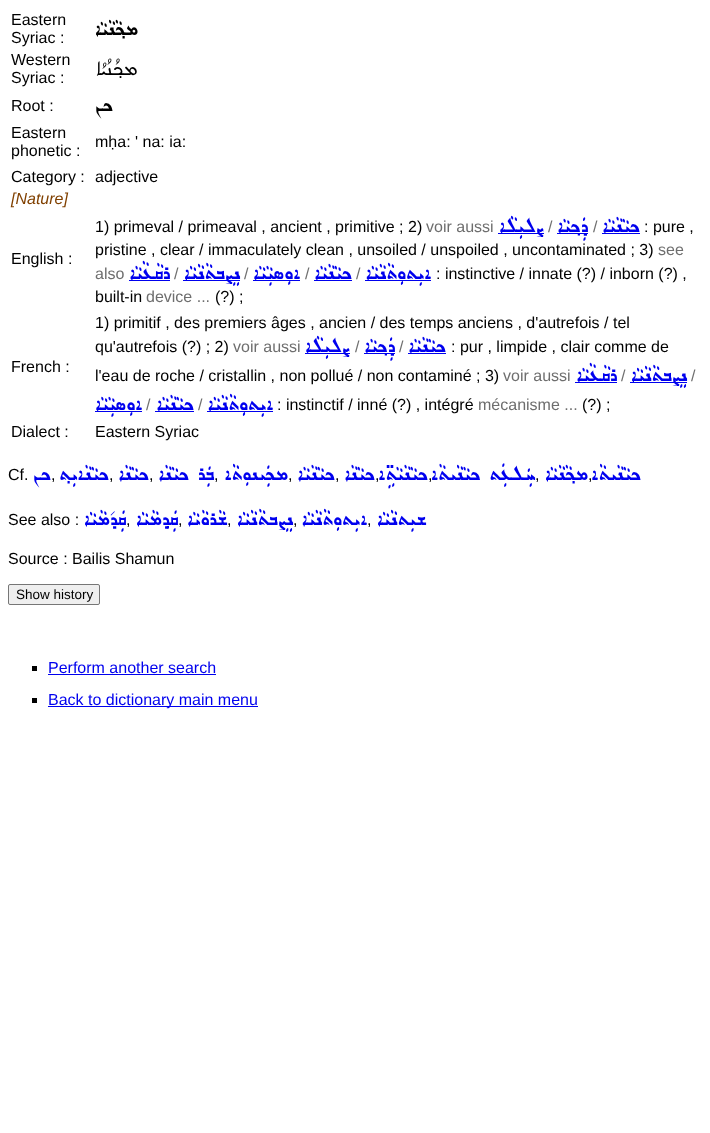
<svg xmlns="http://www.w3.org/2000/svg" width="710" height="1133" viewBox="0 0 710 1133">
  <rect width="100%" height="100%" fill="rgb(255,255,255)"/>
  <g font-family="Liberation Sans" font-size="16" fill="rgb(0,0,0)">
    <text>
      <tspan x="11" y="25">Eastern</tspan>
      <tspan x="11" y="43">Syriac :</tspan>
    </text>
  </g>
  <text x="138" y="35" font-family="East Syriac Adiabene" font-size="25.5" direction="rtl" fill="rgb(0,0,0)">ܡܟ݂ܵܢܵܝܵܐ</text>
  <g font-family="Liberation Sans" font-size="16" fill="rgb(0,0,0)">
    <text>
      <tspan x="11" y="65">Western</tspan>
      <tspan x="11" y="83">Syriac :</tspan>
    </text>
  </g>
  <text x="137" y="75" font-family="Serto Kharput" font-size="27" direction="rtl" fill="rgb(0,0,0)">ܡܟ݂ܳܢܳܝܳܐ</text>
  <text x="11" y="111" font-family="Liberation Sans" font-size="16" fill="rgb(0,0,0)">Root :</text>
  <text x="113" y="111" font-family="East Syriac Adiabene" font-size="25.5" direction="rtl" fill="rgb(0,0,0)">ܟܢ</text>
  <g font-family="Liberation Sans" font-size="16" fill="rgb(0,0,0)">
    <text>
      <tspan x="11" y="138">Eastern</tspan>
      <tspan x="11" y="156">phonetic :</tspan>
    </text>
    <text x="95" y="147">mḥa: ' na: ia:</text>
    <text x="11" y="182">Category :</text>
    <text x="95" y="182">adjective</text>
  </g>
  <text x="11" y="204" font-family="Liberation Sans" font-size="16" font-style="italic" fill="rgb(128,64,0)">[Nature]</text>
  <g font-family="Liberation Sans" font-size="16" fill="rgb(0,0,0)">
    <text x="11" y="264">English :</text>
    <text x="95" y="232">1) primeval / primeaval , ancient , primitive ; 2)</text>
  </g>
  <text x="426" y="232" font-family="Liberation Sans" font-size="16" fill="rgb(110,110,110)">voir aussi</text>
  <rect x="498" y="233" width="46" height="1" fill="rgb(0,0,238)"/>
  <text x="544" y="232" font-family="East Syriac Adiabene" font-size="25.5" direction="rtl" fill="rgb(0,0,238)">ܨܠܝܼܠܵܐ</text>
  <text x="548" y="232" font-family="Liberation Sans" font-size="16" fill="rgb(110,110,110)">/</text>
  <rect x="557" y="233" width="31" height="1" fill="rgb(0,0,238)"/>
  <text x="588" y="232" font-family="East Syriac Adiabene" font-size="25.5" direction="rtl" fill="rgb(0,0,238)">ܕܲܟ݂ܝܵܐ</text>
  <text x="593" y="232" font-family="Liberation Sans" font-size="16" fill="rgb(110,110,110)">/</text>
  <rect x="602" y="233" width="38" height="1" fill="rgb(0,0,238)"/>
  <text x="640" y="232" font-family="East Syriac Adiabene" font-size="25.5" direction="rtl" fill="rgb(0,0,238)">ܟܝܵܢܵܝܵܐ</text>
  <g font-family="Liberation Sans" font-size="16" fill="rgb(0,0,0)">
    <text x="644" y="232">: pure ,</text>
    <text x="95" y="255">pristine , clear / immaculately clean , unsoiled / unspoiled , uncontaminated ; 3)</text>
  </g>
  <g font-family="Liberation Sans" font-size="16" fill="rgb(110,110,110)">
    <text x="658" y="255">see</text>
    <text x="95" y="279">also</text>
  </g>
  <rect x="129" y="280" width="41" height="1" fill="rgb(0,0,238)"/>
  <text x="170" y="279" font-family="East Syriac Adiabene" font-size="25.5" direction="rtl" fill="rgb(0,0,238)">ܪܩܵܥܵܝܵܐ</text>
  <text x="174" y="279" font-family="Liberation Sans" font-size="16" fill="rgb(110,110,110)">/</text>
  <rect x="183" y="280" width="57" height="1" fill="rgb(0,0,238)"/>
  <text x="240" y="279" font-family="East Syriac Adiabene" font-size="25.5" direction="rtl" fill="rgb(0,0,238)">ܢܸܨܒܬܵܢܵܝܵܐ</text>
  <text x="244" y="279" font-family="Liberation Sans" font-size="16" fill="rgb(110,110,110)">/</text>
  <rect x="253" y="280" width="47" height="1" fill="rgb(0,0,238)"/>
  <text x="300" y="279" font-family="East Syriac Adiabene" font-size="25.5" direction="rtl" fill="rgb(0,0,238)">ܐܘܼܣܝܼܵܝܵܐ</text>
  <text x="305" y="279" font-family="Liberation Sans" font-size="16" fill="rgb(110,110,110)">/</text>
  <rect x="314" y="280" width="38" height="1" fill="rgb(0,0,238)"/>
  <text x="352" y="279" font-family="East Syriac Adiabene" font-size="25.5" direction="rtl" fill="rgb(0,0,238)">ܟܝܵܢܵܝܵܐ</text>
  <text x="356" y="279" font-family="Liberation Sans" font-size="16" fill="rgb(110,110,110)">/</text>
  <rect x="365" y="280" width="66" height="1" fill="rgb(0,0,238)"/>
  <text x="431" y="279" font-family="East Syriac Adiabene" font-size="25.5" direction="rtl" fill="rgb(0,0,238)">ܐܝܼܬܘܼܬܵܢܵܝܵܐ</text>
  <g font-family="Liberation Sans" font-size="16" fill="rgb(0,0,0)">
    <text x="436" y="279">: instinctive / innate (?) / inborn (?) ,</text>
    <text x="95" y="302">built-in</text>
  </g>
  <text x="146" y="302" font-family="Liberation Sans" font-size="16" fill="rgb(110,110,110)">device ...</text>
  <g font-family="Liberation Sans" font-size="16" fill="rgb(0,0,0)">
    <text x="215" y="302">(?) ;</text>
    <text x="11" y="372">French :</text>
    <text>
      <tspan x="95" y="328">1) primitif , des premiers âges , ancien / des temps anciens , d'autrefois / tel</tspan>
      <tspan x="95" y="352">qu'autrefois (?) ; 2)</tspan>
    </text>
  </g>
  <text x="233" y="352" font-family="Liberation Sans" font-size="16" fill="rgb(110,110,110)">voir aussi</text>
  <rect x="305" y="353" width="45" height="1" fill="rgb(0,0,238)"/>
  <text x="350" y="352" font-family="East Syriac Adiabene" font-size="25.5" direction="rtl" fill="rgb(0,0,238)">ܨܠܝܼܠܵܐ</text>
  <text x="355" y="352" font-family="Liberation Sans" font-size="16" fill="rgb(110,110,110)">/</text>
  <rect x="364" y="353" width="31" height="1" fill="rgb(0,0,238)"/>
  <text x="395" y="352" font-family="East Syriac Adiabene" font-size="25.5" direction="rtl" fill="rgb(0,0,238)">ܕܲܟ݂ܝܵܐ</text>
  <text x="399" y="352" font-family="Liberation Sans" font-size="16" fill="rgb(110,110,110)">/</text>
  <rect x="408" y="353" width="38" height="1" fill="rgb(0,0,238)"/>
  <text x="446" y="352" font-family="East Syriac Adiabene" font-size="25.5" direction="rtl" fill="rgb(0,0,238)">ܟܝܵܢܵܝܵܐ</text>
  <g font-family="Liberation Sans" font-size="16" fill="rgb(0,0,0)">
    <text x="451" y="352">: pur , limpide , clair comme de</text>
    <text x="95" y="381">l'eau de roche / cristallin , non pollué / non contaminé ; 3)</text>
  </g>
  <text x="503" y="381" font-family="Liberation Sans" font-size="16" fill="rgb(110,110,110)">voir aussi</text>
  <rect x="575" y="382" width="42" height="1" fill="rgb(0,0,238)"/>
  <text x="617" y="381" font-family="East Syriac Adiabene" font-size="25.5" direction="rtl" fill="rgb(0,0,238)">ܪܩܵܥܵܝܵܐ</text>
  <text x="621" y="381" font-family="Liberation Sans" font-size="16" fill="rgb(110,110,110)">/</text>
  <rect x="630" y="382" width="57" height="1" fill="rgb(0,0,238)"/>
  <text x="687" y="381" font-family="East Syriac Adiabene" font-size="25.5" direction="rtl" fill="rgb(0,0,238)">ܢܸܨܒܬܵܢܵܝܵܐ</text>
  <text x="691" y="381" font-family="Liberation Sans" font-size="16" fill="rgb(110,110,110)">/</text>
  <rect x="95" y="411" width="47" height="1" fill="rgb(0,0,238)"/>
  <text x="142" y="410" font-family="East Syriac Adiabene" font-size="25.5" direction="rtl" fill="rgb(0,0,238)">ܐܘܼܣܝܼܵܝܵܐ</text>
  <text x="146" y="410" font-family="Liberation Sans" font-size="16" fill="rgb(110,110,110)">/</text>
  <rect x="155" y="411" width="39" height="1" fill="rgb(0,0,238)"/>
  <text x="194" y="410" font-family="East Syriac Adiabene" font-size="25.5" direction="rtl" fill="rgb(0,0,238)">ܟܝܵܢܵܝܵܐ</text>
  <text x="198" y="410" font-family="Liberation Sans" font-size="16" fill="rgb(110,110,110)">/</text>
  <rect x="207" y="411" width="66" height="1" fill="rgb(0,0,238)"/>
  <text x="273" y="410" font-family="East Syriac Adiabene" font-size="25.5" direction="rtl" fill="rgb(0,0,238)">ܐܝܼܬܘܼܬܵܢܵܝܵܐ</text>
  <text x="277" y="410" font-family="Liberation Sans" font-size="16" fill="rgb(0,0,0)">: instinctif / inné (?) , intégré</text>
  <text x="478" y="410" font-family="Liberation Sans" font-size="16" fill="rgb(110,110,110)">mécanisme ...</text>
  <g font-family="Liberation Sans" font-size="16" fill="rgb(0,0,0)">
    <text x="582" y="410">(?) ;</text>
    <text x="11" y="437">Dialect :</text>
    <text x="95" y="437">Eastern Syriac</text>
    <text x="8" y="480">Cf.</text>
  </g>
  <text x="51" y="480" font-family="East Syriac Adiabene" font-size="25.5" direction="rtl" fill="rgb(0,0,238)">ܟܢ</text>
  <text x="51" y="480" font-family="Liberation Sans" font-size="16" fill="rgb(0,0,0)">,</text>
  <text x="109" y="480" font-family="East Syriac Adiabene" font-size="25.5" direction="rtl" fill="rgb(0,0,238)">ܟܝܵܢܵܐܝܼܬ݂</text>
  <text x="109" y="480" font-family="Liberation Sans" font-size="16" fill="rgb(0,0,0)">,</text>
  <text x="149" y="480" font-family="East Syriac Adiabene" font-size="25.5" direction="rtl" fill="rgb(0,0,238)">ܟܝܵܢܵܐ</text>
  <text x="149" y="480" font-family="Liberation Sans" font-size="16" fill="rgb(0,0,0)">,</text>
  <text x="214" y="480" font-family="East Syriac Adiabene" font-size="25.5" direction="rtl" fill="rgb(0,0,238)">ܒܲܪ ܟܝܵܢܵܐ</text>
  <text x="214" y="480" font-family="Liberation Sans" font-size="16" fill="rgb(0,0,0)">,</text>
  <text x="288" y="480" font-family="East Syriac Adiabene" font-size="25.5" direction="rtl" fill="rgb(0,0,238)">ܡܟܲܝܢܘܼܬܵܐ</text>
  <text x="288" y="480" font-family="Liberation Sans" font-size="16" fill="rgb(0,0,0)">,</text>
  <text x="335" y="480" font-family="East Syriac Adiabene" font-size="25.5" direction="rtl" fill="rgb(0,0,238)">ܟܝܵܢܵܝܵܐ</text>
  <text x="335" y="480" font-family="Liberation Sans" font-size="16" fill="rgb(0,0,0)">,</text>
  <text x="375" y="480" font-family="East Syriac Adiabene" font-size="25.5" direction="rtl" fill="rgb(0,0,238)">ܟܝܵܢܵܐ</text>
  <text x="375" y="480" font-family="Liberation Sans" font-size="16" fill="rgb(0,0,0)">,</text>
  <text x="428" y="480" font-family="East Syriac Adiabene" font-size="25.5" direction="rtl" fill="rgb(0,0,238)">ܟܝܵܢܵܝܵܬܹ̈ܐ</text>
  <text x="428" y="480" font-family="Liberation Sans" font-size="16" fill="rgb(0,0,0)">,</text>
  <text x="535" y="480" font-family="East Syriac Adiabene" font-size="25.5" direction="rtl" fill="rgb(0,0,238)">ܚܲܠܥܲܬ ܟܝܵܢܵܝܬܵܐ</text>
  <text x="535" y="480" font-family="Liberation Sans" font-size="16" fill="rgb(0,0,0)">,</text>
  <text x="588" y="480" font-family="East Syriac Adiabene" font-size="25.5" direction="rtl" fill="rgb(0,0,238)">ܡܟ݂ܵܢܵܝܵܐ</text>
  <text x="588" y="480" font-family="Liberation Sans" font-size="16" fill="rgb(0,0,0)">,</text>
  <text x="641" y="480" font-family="East Syriac Adiabene" font-size="25.5" direction="rtl" fill="rgb(0,0,238)">ܟܝܵܢܵܝܬܵܐ</text>
  <text x="8" y="525" font-family="Liberation Sans" font-size="16" fill="rgb(0,0,0)">See also :</text>
  <text x="126" y="525" font-family="East Syriac Adiabene" font-size="25.5" direction="rtl" fill="rgb(0,0,238)">ܩܲܕ݇ܡܵܝܵܐ</text>
  <text x="126" y="525" font-family="Liberation Sans" font-size="16" fill="rgb(0,0,0)">,</text>
  <text x="178" y="525" font-family="East Syriac Adiabene" font-size="25.5" direction="rtl" fill="rgb(0,0,238)">ܩܲܕ݂ܡܵܝܵܐ</text>
  <text x="178" y="525" font-family="Liberation Sans" font-size="16" fill="rgb(0,0,0)">,</text>
  <text x="227" y="525" font-family="East Syriac Adiabene" font-size="25.5" direction="rtl" fill="rgb(0,0,238)">ܫܵܪܘܵܝܵܐ</text>
  <text x="227" y="525" font-family="Liberation Sans" font-size="16" fill="rgb(0,0,0)">,</text>
  <text x="293" y="525" font-family="East Syriac Adiabene" font-size="25.5" direction="rtl" fill="rgb(0,0,238)">ܢܸܨܒܬܵܢܵܝܵܐ</text>
  <text x="293" y="525" font-family="Liberation Sans" font-size="16" fill="rgb(0,0,0)">,</text>
  <text x="367" y="525" font-family="East Syriac Adiabene" font-size="25.5" direction="rtl" fill="rgb(0,0,238)">ܐܝܼܬܘܼܬܵܢܵܝܵܐ</text>
  <text x="367" y="525" font-family="Liberation Sans" font-size="16" fill="rgb(0,0,0)">,</text>
  <text x="426" y="525" font-family="East Syriac Adiabene" font-size="25.5" direction="rtl" fill="rgb(0,0,238)">ܫܝܼܬܢܵܝܵܐ</text>
  <text x="8" y="564" font-family="Liberation Sans" font-size="16" fill="rgb(0,0,0)">Source : Bailis Shamun</text>
  <rect x="8.5" y="584.5" width="91" height="20" rx="1.5" fill="rgb(239,239,239)" stroke="rgb(118,118,118)"/>
  <text x="16" y="599" font-family="Liberation Sans" font-size="13.5" fill="rgb(0,0,0)">Show history</text>
  <rect x="32" y="666" width="5" height="5" fill="rgb(0,0,0)"/>
  <text x="48" y="673" font-family="Liberation Sans" font-size="16" fill="rgb(0,0,238)">Perform another search</text>
  <rect x="48" y="674" width="168" height="1" fill="rgb(0,0,238)"/>
  <rect x="32" y="698" width="5" height="5" fill="rgb(0,0,0)"/>
  <rect x="48" y="706" width="210" height="1" fill="rgb(0,0,238)"/>
  <text x="48" y="705" font-family="Liberation Sans" font-size="16" fill="rgb(0,0,238)">Back to dictionary main menu</text>
</svg>
